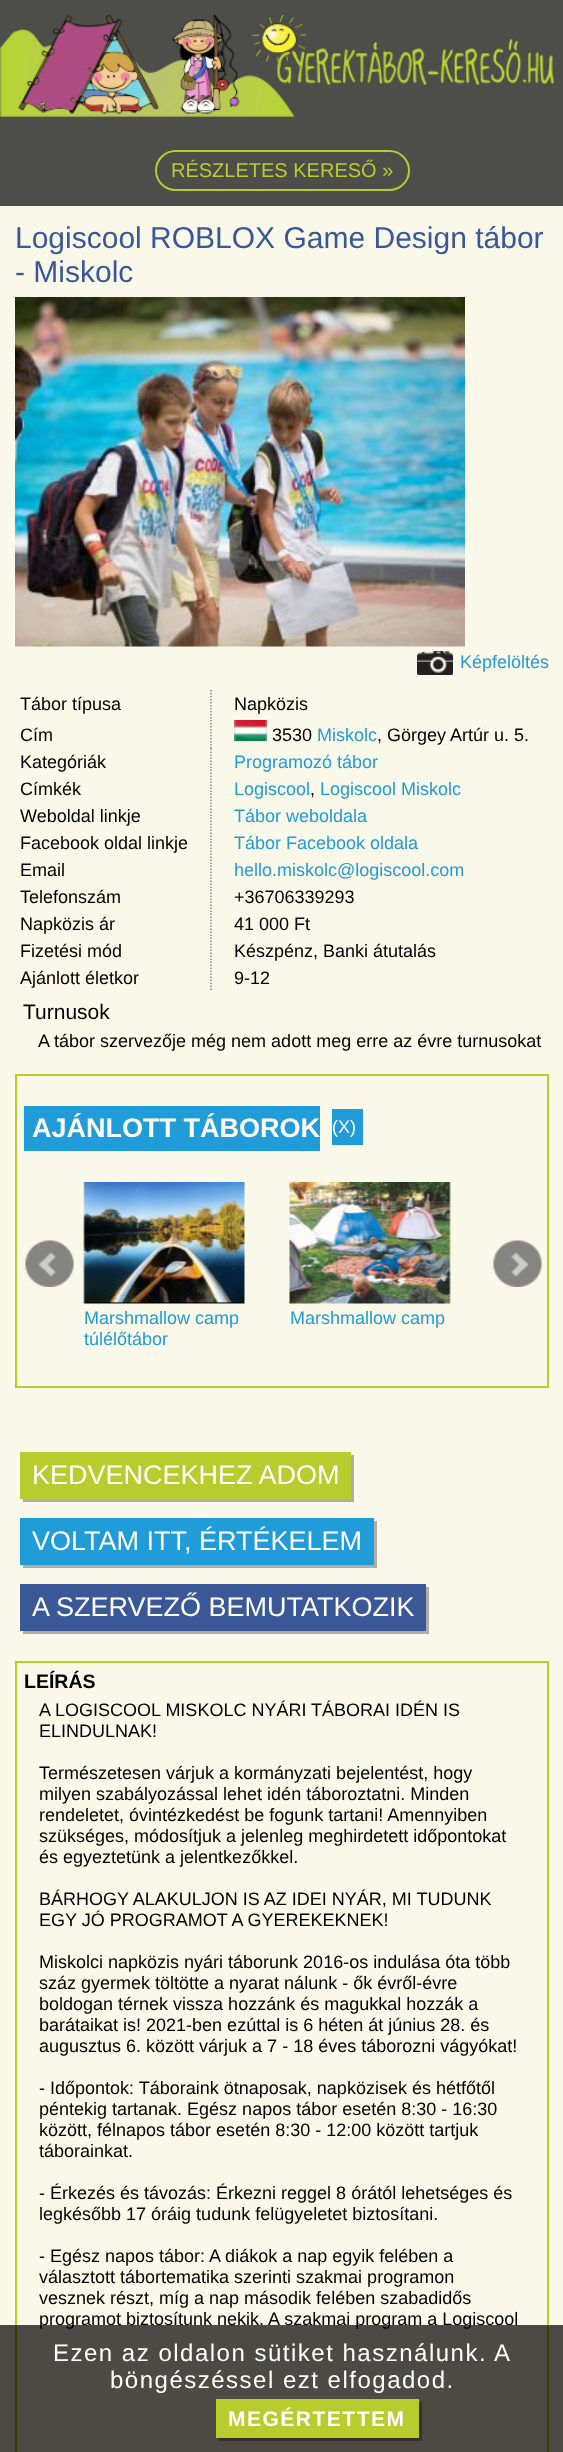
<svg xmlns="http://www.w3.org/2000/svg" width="563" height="2452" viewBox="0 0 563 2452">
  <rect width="100%" height="100%" fill="rgb(77,77,74)"/>
  <image x="0" y="15" width="554" height="102" href="pic1.png"/>
  <rect x="156" y="151" width="253" height="39" rx="19.5" fill="none" stroke="rgb(182,205,45)" stroke-width="2"/>
  <text x="171" y="177" font-family="Liberation Sans" font-size="20" fill="rgb(182,205,45)">RÉSZLETES KERESŐ »</text>
  <rect x="0" y="206" width="563" height="2246" fill="rgb(250,248,232)"/>
  <g font-family="Liberation Sans" font-size="30" fill="rgb(56,88,153)">
    <text>
      <tspan x="15" y="248">Logiscool ROBLOX Game Design tábor</tspan>
      <tspan x="15" y="282">- Miskolc</tspan>
    </text>
  </g>
  <image x="15" y="297" width="450" height="350" href="pic2.png"/>
  <image x="417" y="651" width="36" height="24" href="pic3.png"/>
  <text x="460" y="668" font-family="Liberation Sans" font-size="18" fill="rgb(32,156,216)">Képfelöltés</text>
  <path d="M211 690V717M211 717V748.5" fill="none" stroke="rgb(136,136,136)" stroke-width="1.5" stroke-dasharray="1.5 1.5"/>
  <g font-family="Liberation Sans" font-size="18" fill="rgb(0,0,0)">
    <text x="20" y="710">Tábor típusa</text>
    <text x="234" y="710">Napközis</text>
    <text x="20" y="741">Cím</text>
  </g>
  <image x="234" y="720" width="33" height="21" href="pic4.png"/>
  <text x="272" y="741" font-family="Liberation Sans" font-size="18" fill="rgb(0,0,0)">3530</text>
  <text x="317" y="741" font-family="Liberation Sans" font-size="18" fill="rgb(32,156,216)">Miskolc</text>
  <text x="377" y="741" font-family="Liberation Sans" font-size="18" fill="rgb(0,0,0)">, Görgey Artúr u. 5.</text>
  <path d="M211 748.5V775.5M211 775.5V802.5" fill="none" stroke="rgb(136,136,136)" stroke-width="1.5" stroke-dasharray="1.5 1.5"/>
  <text x="20" y="768" font-family="Liberation Sans" font-size="18" fill="rgb(0,0,0)">Kategóriák</text>
  <text x="234" y="768" font-family="Liberation Sans" font-size="18" fill="rgb(32,156,216)">Programozó tábor</text>
  <text x="20" y="795" font-family="Liberation Sans" font-size="18" fill="rgb(0,0,0)">Címkék</text>
  <text x="234" y="795" font-family="Liberation Sans" font-size="18" fill="rgb(32,156,216)">Logiscool</text>
  <text x="310" y="795" font-family="Liberation Sans" font-size="18" fill="rgb(0,0,0)">,</text>
  <text x="320" y="795" font-family="Liberation Sans" font-size="18" fill="rgb(32,156,216)">Logiscool Miskolc</text>
  <path d="M211 802.5V829.5M211 829.5V856.5" fill="none" stroke="rgb(136,136,136)" stroke-width="1.5" stroke-dasharray="1.5 1.5"/>
  <text x="20" y="822" font-family="Liberation Sans" font-size="18" fill="rgb(0,0,0)">Weboldal linkje</text>
  <text x="234" y="822" font-family="Liberation Sans" font-size="18" fill="rgb(32,156,216)">Tábor weboldala</text>
  <text x="20" y="849" font-family="Liberation Sans" font-size="18" fill="rgb(0,0,0)">Facebook oldal linkje</text>
  <text x="234" y="849" font-family="Liberation Sans" font-size="18" fill="rgb(32,156,216)">Tábor Facebook oldala</text>
  <path d="M211 856.5V883.5M211 883.5V910.5" fill="none" stroke="rgb(136,136,136)" stroke-width="1.5" stroke-dasharray="1.5 1.5"/>
  <text x="20" y="876" font-family="Liberation Sans" font-size="18" fill="rgb(0,0,0)">Email</text>
  <text x="234" y="876" font-family="Liberation Sans" font-size="18" fill="rgb(32,156,216)">hello.miskolc@logiscool.com</text>
  <g font-family="Liberation Sans" font-size="18" fill="rgb(0,0,0)">
    <text x="20" y="903">Telefonszám</text>
    <text x="234" y="903">+36706339293</text>
  </g>
  <path d="M211 910.5V937.5M211 937.5V964.5" fill="none" stroke="rgb(136,136,136)" stroke-width="1.5" stroke-dasharray="1.5 1.5"/>
  <g font-family="Liberation Sans" font-size="18" fill="rgb(0,0,0)">
    <text x="20" y="930">Napközis ár</text>
    <text x="234" y="930">41 000 Ft</text>
    <text x="20" y="957">Fizetési mód</text>
    <text x="234" y="957">Készpénz, Banki átutalás</text>
  </g>
  <path d="M211 964.5V991.5" fill="none" stroke="rgb(136,136,136)" stroke-width="1.5" stroke-dasharray="1.5 1.5"/>
  <g font-family="Liberation Sans" font-size="18" fill="rgb(0,0,0)">
    <text x="20" y="984">Ajánlott életkor</text>
    <text x="234" y="984">9-12</text>
  </g>
  <text x="23" y="1019" font-family="Liberation Sans" font-size="21" fill="rgb(0,0,0)">Turnusok</text>
  <text x="38" y="1047" font-family="Liberation Sans" font-size="18" fill="rgb(0,0,0)">A tábor szervezője még nem adott meg erre az évre turnusokat</text>
  <rect x="16" y="1075" width="532" height="312" fill="none" stroke="rgb(182,205,45)" stroke-width="2"/>
  <rect x="24" y="1106" width="296" height="45" fill="rgb(32,156,216)"/>
  <text x="32" y="1137" font-family="Liberation Sans" font-size="27" font-weight="bold" fill="rgb(255,255,255)">AJÁNLOTT TÁBOROK</text>
  <rect x="332" y="1109" width="31" height="36" fill="rgb(32,156,216)"/>
  <text x="332" y="1133" font-family="Liberation Sans" font-size="18" fill="rgb(255,255,255)">(X)</text>
  <image x="25" y="1240" width="49" height="47" href="pic5.png"/>
  <image x="493" y="1240" width="49" height="47" href="pic6.png"/>
  <image x="83" y="1182" width="162" height="122" href="pic7.png"/>
  <g font-family="Liberation Sans" font-size="18" fill="rgb(32,156,216)">
    <text>
      <tspan x="84" y="1324">Marshmallow camp</tspan>
      <tspan x="84" y="1345">túlélőtábor</tspan>
    </text>
  </g>
  <image x="289" y="1182" width="162" height="122" href="pic8.png"/>
  <text x="290" y="1324" font-family="Liberation Sans" font-size="18" fill="rgb(32,156,216)">Marshmallow camp</text>
  <path d="M23 1498V1502H354V1455H351V1498Z" fill="rgb(175,174,162)"/>
  <rect x="20" y="1452" width="331" height="47" fill="rgb(182,205,45)"/>
  <text x="32" y="1484" font-family="Liberation Sans" font-size="27" fill="rgb(255,255,255)">KEDVENCEKHEZ ADOM</text>
  <path d="M23 1564V1568H377V1521H374V1564Z" fill="rgb(175,174,162)"/>
  <rect x="20" y="1518" width="354" height="47" fill="rgb(32,156,216)"/>
  <text x="32" y="1550" font-family="Liberation Sans" font-size="27" fill="rgb(255,255,255)">VOLTAM ITT, ÉRTÉKELEM</text>
  <path d="M23 1630V1634H429V1587H426V1630Z" fill="rgb(175,174,162)"/>
  <rect x="20" y="1584" width="406" height="47" fill="rgb(58,88,152)"/>
  <text x="32" y="1616" font-family="Liberation Sans" font-size="27" fill="rgb(255,255,255)">A SZERVEZŐ BEMUTATKOZIK</text>
  <rect x="16" y="1662" width="532" height="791" fill="none" stroke="rgb(182,205,45)" stroke-width="2"/>
  <text x="24" y="1688" font-family="Liberation Sans" font-size="19.5" font-weight="bold" fill="rgb(0,0,0)">LEÍRÁS</text>
  <g font-family="Liberation Sans" font-size="18" fill="rgb(0,0,0)">
    <text>
      <tspan x="39" y="1716">A LOGISCOOL MISKOLC NYÁRI TÁBORAI IDÉN IS</tspan>
      <tspan x="39" y="1737">ELINDULNAK!</tspan>
    </text>
    <text>
      <tspan x="39" y="1779">Természetesen várjuk a kormányzati bejelentést, hogy</tspan>
      <tspan x="39" y="1800">milyen szabályozással lehet idén táboroztatni. Minden</tspan>
      <tspan x="39" y="1821">rendeletet, óvintézkedést be fogunk tartani! Amennyiben</tspan>
      <tspan x="39" y="1842">szükséges, módosítjuk a jelenleg meghirdetett időpontokat</tspan>
      <tspan x="39" y="1863">és egyeztetünk a jelentkezőkkel.</tspan>
    </text>
    <text>
      <tspan x="39" y="1905">BÁRHOGY ALAKULJON IS AZ IDEI NYÁR, MI TUDUNK</tspan>
      <tspan x="39" y="1926">EGY JÓ PROGRAMOT A GYEREKEKNEK!</tspan>
    </text>
    <text>
      <tspan x="39" y="1968">Miskolci napközis nyári táborunk 2016-os indulása óta több</tspan>
      <tspan x="39" y="1989">száz gyermek töltötte a nyarat nálunk - ők évről-évre</tspan>
      <tspan x="39" y="2010">boldogan térnek vissza hozzánk és magukkal hozzák a</tspan>
      <tspan x="39" y="2031">barátaikat is! 2021-ben ezúttal is 6 héten át június 28. és</tspan>
      <tspan x="39" y="2052">augusztus 6. között várjuk a 7 - 18 éves táborozni vágyókat!</tspan>
    </text>
    <text>
      <tspan x="39" y="2094">- Időpontok: Táboraink ötnaposak, napközisek és hétfőtől</tspan>
      <tspan x="39" y="2115">péntekig tartanak. Egész napos tábor esetén 8:30 - 16:30</tspan>
      <tspan x="39" y="2136">között, félnapos tábor esetén 8:30 - 12:00 között tartjuk</tspan>
      <tspan x="39" y="2157">táborainkat.</tspan>
    </text>
    <text>
      <tspan x="39" y="2199">- Érkezés és távozás: Érkezni reggel 8 órától lehetséges és</tspan>
      <tspan x="39" y="2220">legkésőbb 17 óráig tudunk felügyeletet biztosítani.</tspan>
    </text>
    <text>
      <tspan x="39" y="2262">- Egész napos tábor: A diákok a nap egyik felében a</tspan>
      <tspan x="39" y="2283">választott tábortematika szerinti szakmai programon</tspan>
      <tspan x="39" y="2304">vesznek részt, míg a nap második felében szabadidős</tspan>
      <tspan x="39" y="2325">programot biztosítunk nekik. A szakmai program a Logiscool</tspan>
    </text>
  </g>
  <rect x="0" y="2325" width="563" height="127" fill="rgba(0,0,0,0.7)"/>
  <g font-family="Liberation Sans" font-size="24" letter-spacing="1.5" fill="rgb(255,255,255)">
    <text x="53" y="2361">Ezen az oldalon sütiket használunk. A</text>
    <text x="110" y="2388">böngészéssel ezt elfogadod.</text>
  </g>
  <path d="M219 2438V2441H422V2402H418V2438Z" fill="rgba(0,0,0,0.3)"/>
  <rect x="216" y="2399" width="203" height="39" fill="rgb(182,205,45)"/>
  <text x="228" y="2426" font-family="Liberation Sans" font-size="21" font-weight="bold" letter-spacing="1.5" fill="rgb(255,255,255)">MEGÉRTETTEM</text>
</svg>
